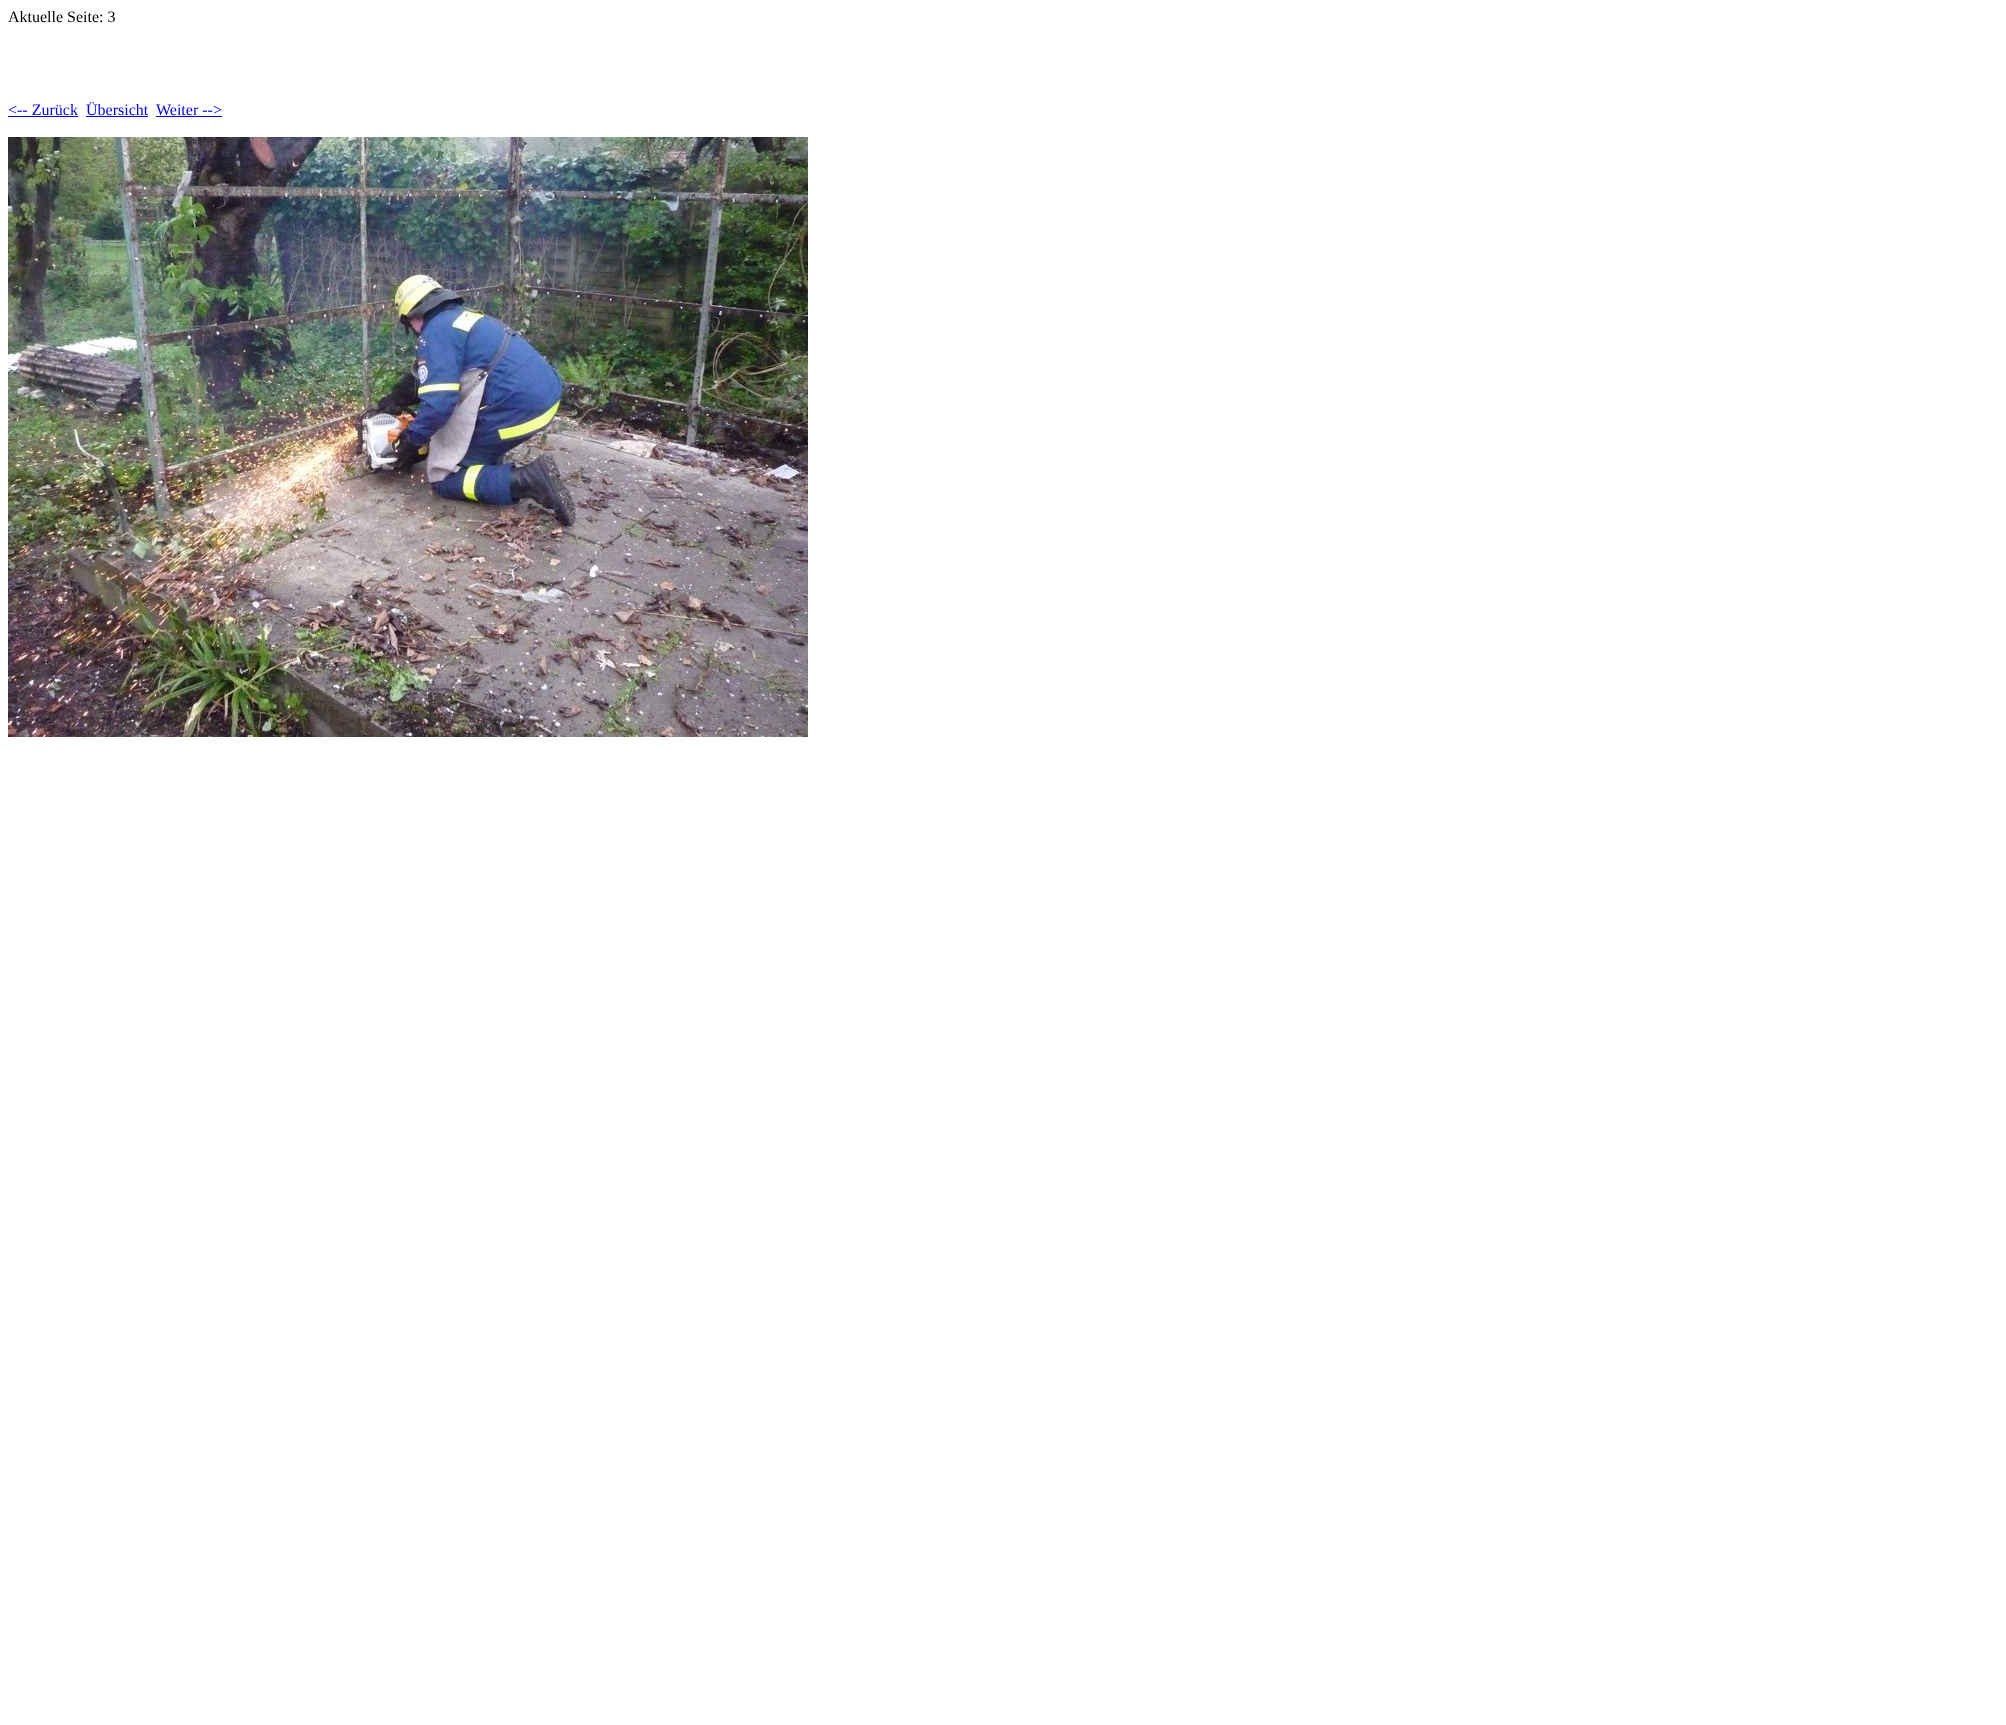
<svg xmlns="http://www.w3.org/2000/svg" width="2006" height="1725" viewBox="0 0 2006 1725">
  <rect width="100%" height="100%" fill="rgb(255,255,255)"/>
  <text x="8" y="22" font-family="Liberation Serif" font-size="16" fill="rgb(0,0,0)">Aktuelle Seite: 3</text>
  <text x="8" y="115" font-family="Liberation Serif" font-size="16" fill="rgb(0,0,238)">&lt;-- Zurück</text>
  <rect x="8" y="116" width="70" height="1" fill="rgb(0,0,238)"/>
  <text x="86" y="115" font-family="Liberation Serif" font-size="16" fill="rgb(0,0,238)">Übersicht</text>
  <rect x="86" y="116" width="62" height="1" fill="rgb(0,0,238)"/>
  <text x="156" y="115" font-family="Liberation Serif" font-size="16" fill="rgb(0,0,238)">Weiter --&gt;</text>
  <rect x="156" y="116" width="66" height="1" fill="rgb(0,0,238)"/>
  <image x="8" y="137" width="800" height="600" href="pic1.png"/>
</svg>
